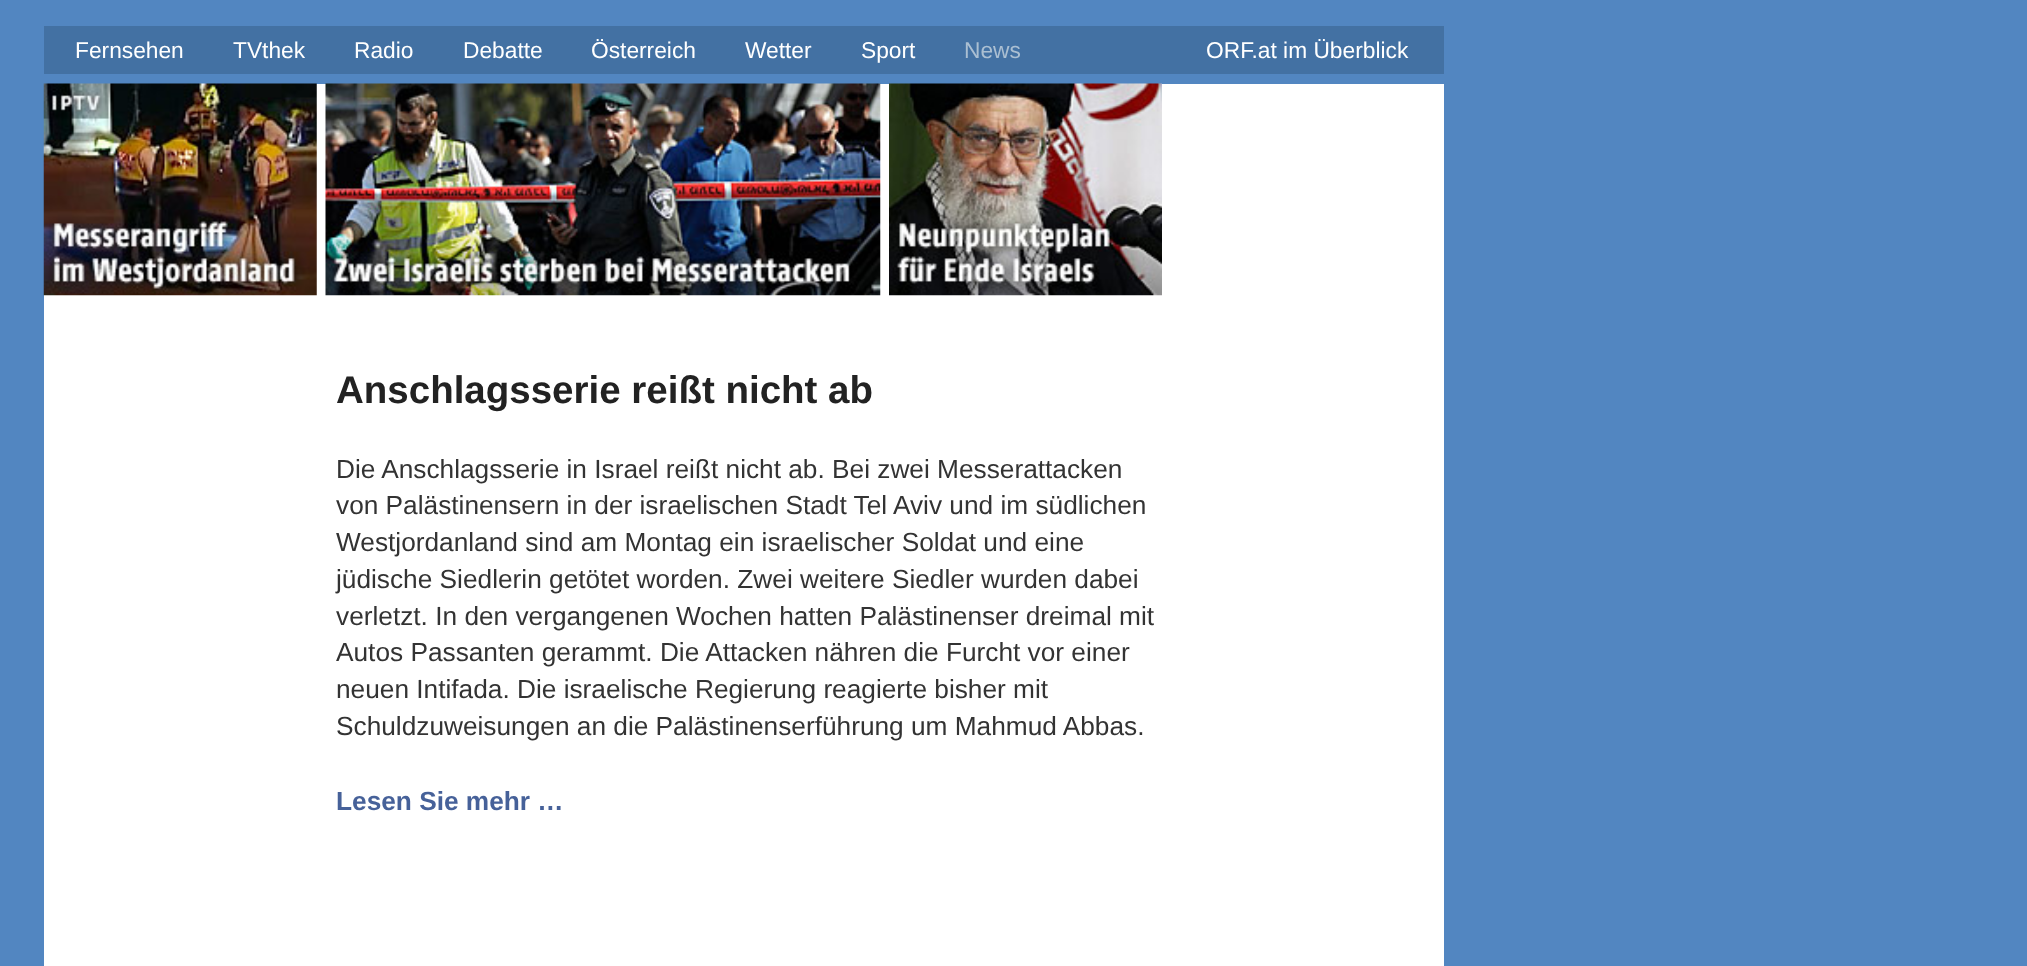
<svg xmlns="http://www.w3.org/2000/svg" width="2027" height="966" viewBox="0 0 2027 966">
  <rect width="100%" height="100%" fill="rgb(82,134,193)"/>
  <rect x="44" y="26" width="1400" height="48" fill="rgb(67,113,163)"/>
  <g font-family="Liberation Sans" font-size="22.75" fill="rgb(255,255,255)">
    <text x="75" y="58">Fernsehen</text>
    <text x="233" y="58">TVthek</text>
    <text x="354" y="58">Radio</text>
    <text x="463" y="58">Debatte</text>
    <text x="591" y="58">Österreich</text>
    <text x="745" y="58">Wetter</text>
    <text x="861" y="58">Sport</text>
  </g>
  <text x="964" y="58" font-family="Liberation Sans" font-size="22.75" fill="rgb(171,191,210)">News</text>
  <text x="1206" y="58" font-family="Liberation Sans" font-size="22.75" fill="rgb(255,255,255)">ORF.at im Überblick</text>
  <rect x="44" y="84" width="1400" height="882" fill="rgb(255,255,255)"/>
  <image x="43" y="83" width="274" height="213" href="pic1.png"/>
  <image x="325" y="83" width="556" height="213" href="pic2.png"/>
  <image x="889" y="83" width="273" height="213" href="pic3.png"/>
  <text x="336" y="403" font-family="Liberation Sans" font-size="38.5" font-weight="bold" fill="rgb(34,34,34)">Anschlagsserie reißt nicht ab</text>
  <g font-family="Liberation Sans" font-size="26.25" fill="rgb(51,51,51)">
    <text>
      <tspan x="336" y="478">Die Anschlagsserie in Israel reißt nicht ab. Bei zwei Messerattacken</tspan>
      <tspan x="336" y="514">von Palästinensern in der israelischen Stadt Tel Aviv und im südlichen</tspan>
      <tspan x="336" y="551">Westjordanland sind am Montag ein israelischer Soldat und eine</tspan>
      <tspan x="336" y="588">jüdische Siedlerin getötet worden. Zwei weitere Siedler wurden dabei</tspan>
      <tspan x="336" y="625">verletzt. In den vergangenen Wochen hatten Palästinenser dreimal mit</tspan>
      <tspan x="336" y="661">Autos Passanten gerammt. Die Attacken nähren die Furcht vor einer</tspan>
      <tspan x="336" y="698">neuen Intifada. Die israelische Regierung reagierte bisher mit</tspan>
      <tspan x="336" y="735">Schuldzuweisungen an die Palästinenserführung um Mahmud Abbas.</tspan>
    </text>
  </g>
  <text x="336" y="810" font-family="Liberation Sans" font-size="26.25" font-weight="bold" fill="rgb(70,97,153)">Lesen Sie mehr …</text>
</svg>
